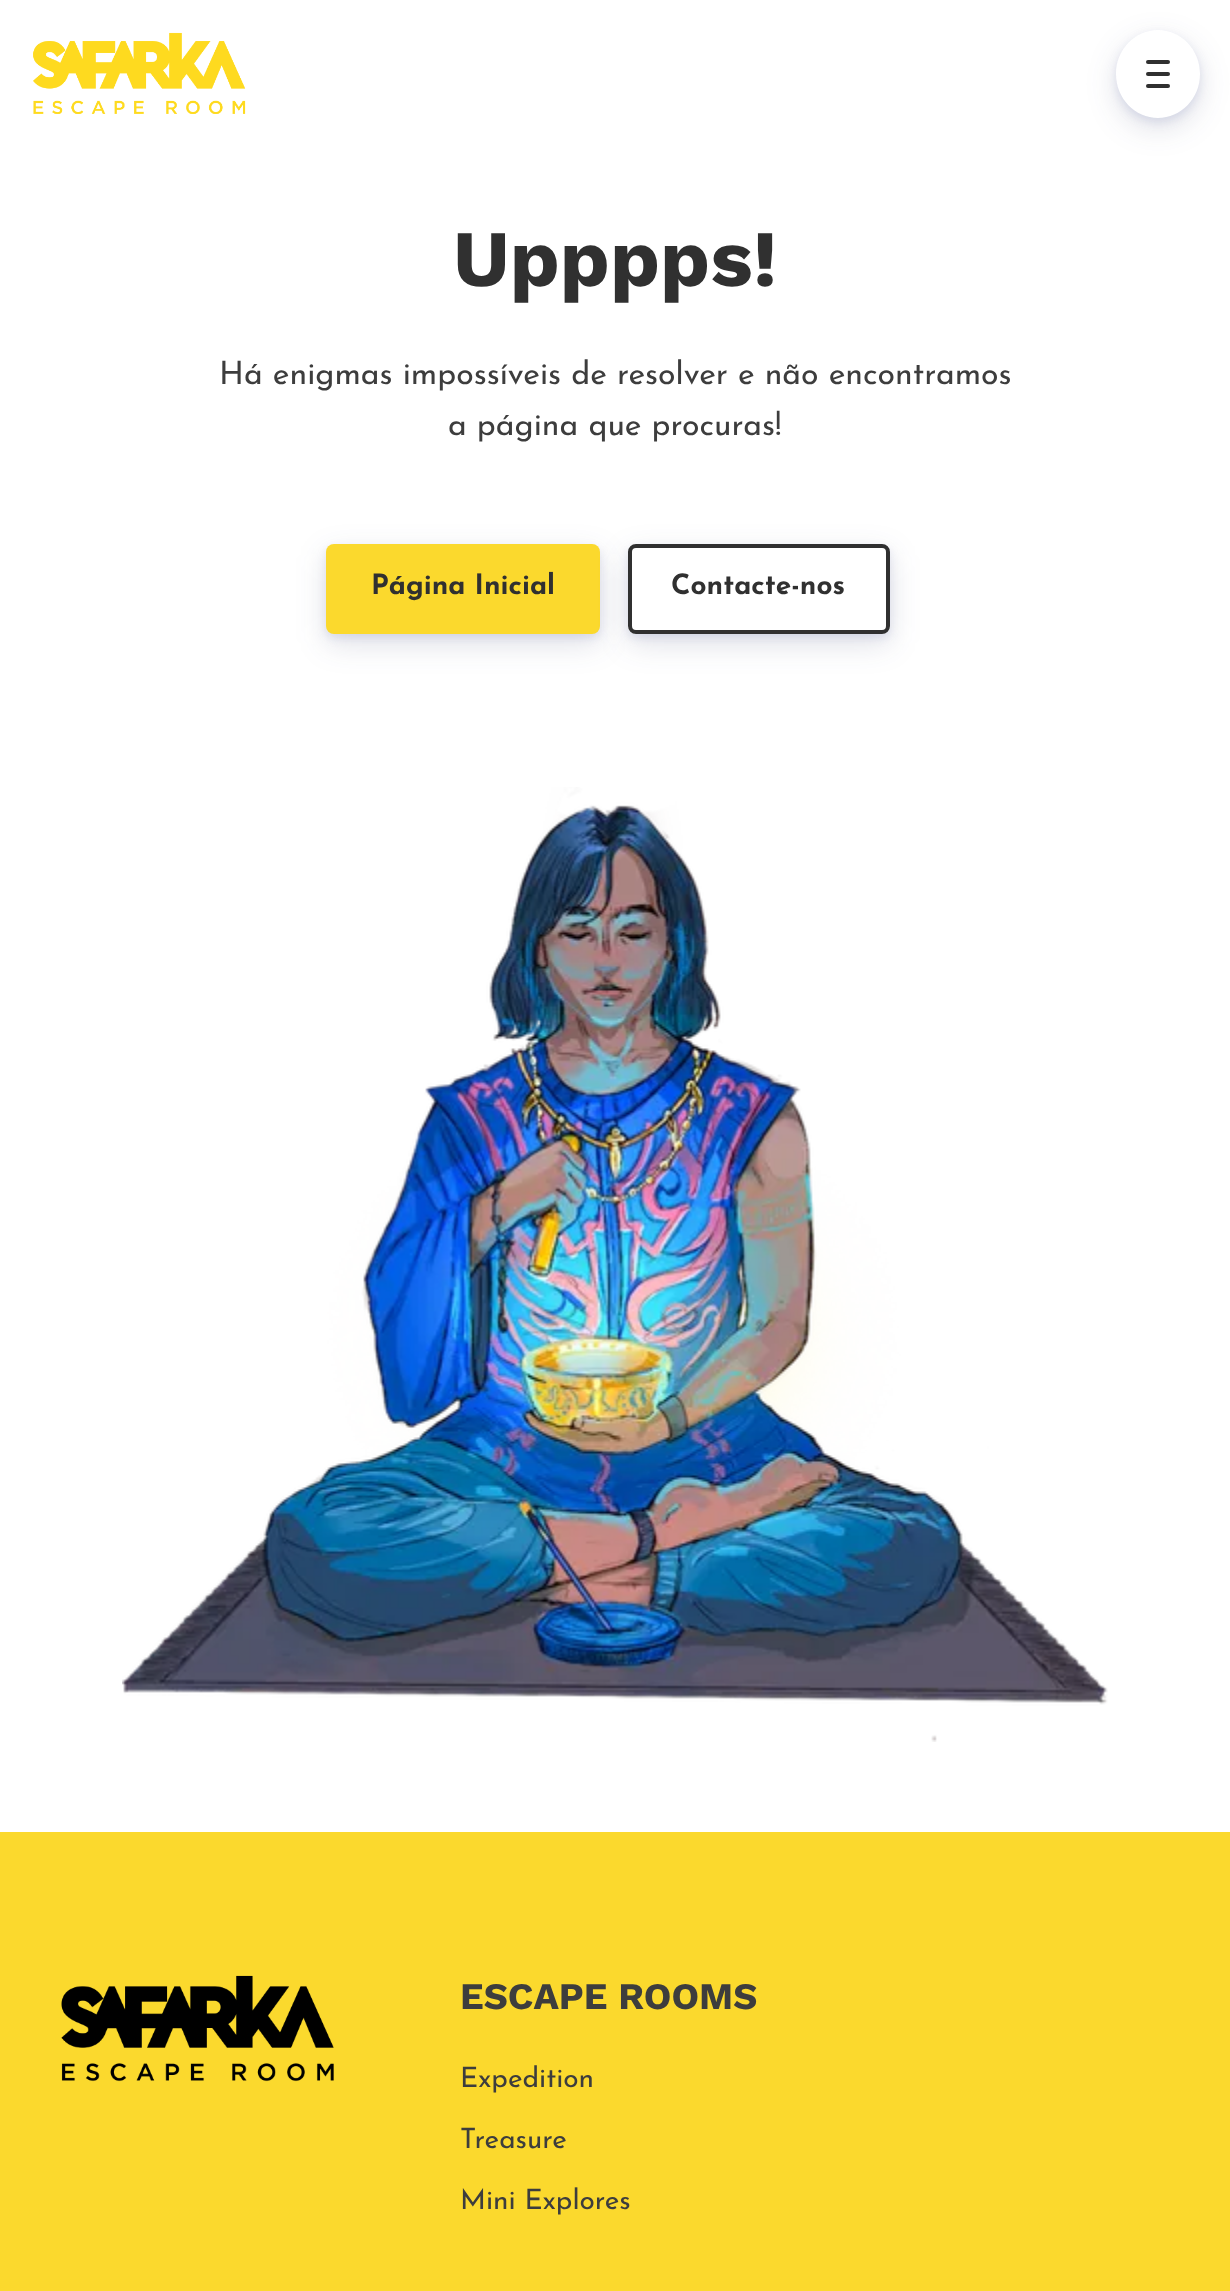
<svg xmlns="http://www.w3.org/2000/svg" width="1230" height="2291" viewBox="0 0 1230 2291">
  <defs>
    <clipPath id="clip1"><path d="M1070 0H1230V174H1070ZM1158 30C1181 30 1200 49.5 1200 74C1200 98.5 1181 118 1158 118C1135 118 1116 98.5 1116 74C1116 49.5 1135 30 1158 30Z" clip-rule="evenodd"/></clipPath>
    <clipPath id="clip2"><path d="M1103 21H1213V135H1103ZM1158 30C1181 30 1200 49.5 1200 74C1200 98.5 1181 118 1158 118C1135 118 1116 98.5 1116 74C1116 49.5 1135 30 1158 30Z" clip-rule="evenodd"/></clipPath>
    <clipPath id="clip3"><path d="M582 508H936V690H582ZM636 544H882C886.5 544 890 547.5 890 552V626C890 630.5 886.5 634 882 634H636C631.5 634 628 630.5 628 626V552C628 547.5 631.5 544 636 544Z" clip-rule="evenodd"/></clipPath>
    <clipPath id="clip4"><path d="M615 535H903V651H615ZM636 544H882C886.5 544 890 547.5 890 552V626C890 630.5 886.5 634 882 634H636C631.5 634 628 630.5 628 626V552C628 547.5 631.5 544 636 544Z" clip-rule="evenodd"/></clipPath>
  </defs>
  <rect width="100%" height="100%" fill="rgb(255,255,255)"/>
  <image x="33" y="32" width="213" height="82" href="pic1.png"/>
  <g clip-path="url(#clip1)">
    <rect x="1116" y="40" width="84" height="88" rx="42" fill="rgba(37,44,97,0.15)" filter="blur(15px)"/>
  </g>
  <g clip-path="url(#clip2)">
    <rect x="1116" y="34" width="84" height="88" rx="42" fill="rgba(136,144,195,0.2)" filter="blur(4px)"/>
  </g>
  <rect x="1146" y="72" width="24" height="4" rx="2" fill="rgb(48,48,48)"/>
  <rect x="1146" y="60" width="24" height="4" rx="2" fill="rgb(48,48,48)"/>
  <rect x="1146" y="84" width="24" height="4" rx="2" fill="rgb(48,48,48)"/>
  <text x="453" y="286" font-family="Work Sans" font-size="80" font-weight="bold" fill="rgb(48,48,48)">Upppps!</text>
  <g font-family="Josefin Sans" font-size="32" fill="rgb(61,61,61)">
    <text x="219" y="384">Há enigmas impossíveis de resolver e não encontramos</text>
    <text x="448" y="435">a página que procuras!</text>
  </g>
  <rect x="326" y="554" width="274" height="90" rx="8" fill="rgba(37,44,97,0.15)" filter="blur(15px)"/>
  <rect x="326" y="548" width="274" height="90" rx="8" fill="rgba(136,144,195,0.2)" filter="blur(4px)"/>
  <rect x="326" y="544" width="274" height="90" rx="8" fill="rgb(251,217,45)"/>
  <text x="371" y="594" font-family="Josefin Sans" font-size="28" font-weight="bold" fill="rgb(48,48,48)">Página Inicial</text>
  <g clip-path="url(#clip3)">
    <rect x="628" y="554" width="262" height="90" rx="8" fill="rgba(37,44,97,0.15)" filter="blur(15px)"/>
  </g>
  <g clip-path="url(#clip4)">
    <rect x="628" y="548" width="262" height="90" rx="8" fill="rgba(136,144,195,0.2)" filter="blur(4px)"/>
  </g>
  <rect x="630" y="546" width="258" height="86" rx="6" fill="none" stroke="rgb(48,48,48)" stroke-width="4"/>
  <text x="671" y="594" font-family="Josefin Sans" font-size="28" font-weight="bold" fill="rgb(48,48,48)">Contacte-nos</text>
  <image x="122" y="787" width="986" height="955" href="pic2.png"/>
  <rect x="0" y="1832" width="1230" height="459" fill="rgb(251,217,45)"/>
  <image x="61" y="1975" width="273" height="107" href="pic3.png"/>
  <text x="460" y="2009" font-family="Work Sans" font-size="37.5" font-weight="bold" fill="rgb(61,61,61)">ESCAPE ROOMS</text>
  <g font-family="Josefin Sans" font-size="28" fill="rgb(61,61,61)">
    <text x="460" y="2087">Expedition</text>
    <text x="460" y="2148">Treasure</text>
    <text x="460" y="2209">Mini Explores</text>
  </g>
</svg>
